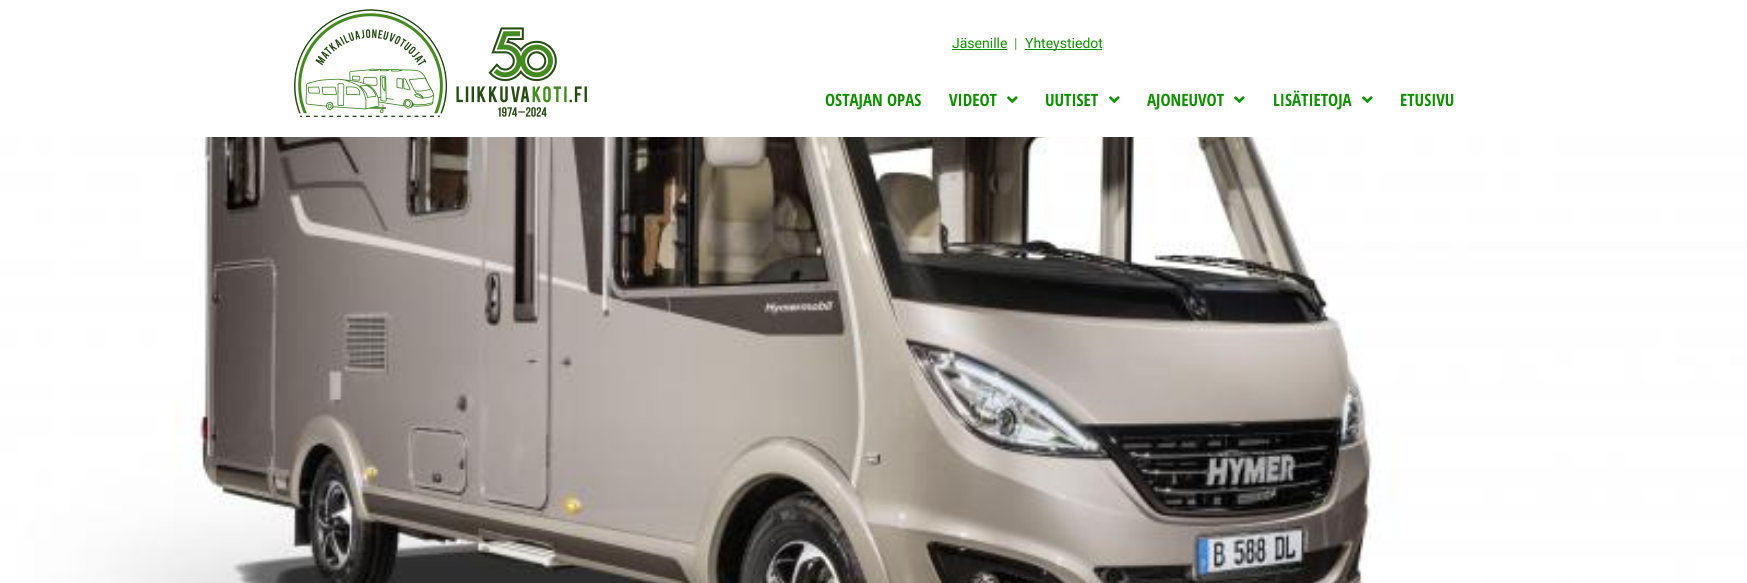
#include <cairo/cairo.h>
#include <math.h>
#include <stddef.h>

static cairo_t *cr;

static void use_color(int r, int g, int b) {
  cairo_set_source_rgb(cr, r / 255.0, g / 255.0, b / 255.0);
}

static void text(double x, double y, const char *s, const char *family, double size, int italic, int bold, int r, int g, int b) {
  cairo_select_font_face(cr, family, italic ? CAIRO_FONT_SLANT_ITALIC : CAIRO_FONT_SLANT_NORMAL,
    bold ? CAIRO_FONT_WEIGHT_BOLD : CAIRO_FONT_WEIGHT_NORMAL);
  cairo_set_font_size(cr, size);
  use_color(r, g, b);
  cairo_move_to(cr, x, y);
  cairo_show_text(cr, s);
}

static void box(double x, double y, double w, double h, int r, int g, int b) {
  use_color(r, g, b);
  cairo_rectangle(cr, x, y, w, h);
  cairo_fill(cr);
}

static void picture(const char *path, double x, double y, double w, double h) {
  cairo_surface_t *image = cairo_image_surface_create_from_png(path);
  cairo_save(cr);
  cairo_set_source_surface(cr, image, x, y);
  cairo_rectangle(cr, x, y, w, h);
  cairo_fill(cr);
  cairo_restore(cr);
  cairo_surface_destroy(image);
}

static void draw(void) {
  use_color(255, 255, 255);
  cairo_paint(cr);
  picture("img_01.png", 294, 9, 293, 108);
  box(952, 49, 55, 1, 18, 143, 0);
  box(1025, 49, 77, 1, 18, 143, 0);
  picture("img_02.png", 1007, 96, 11, 7);
  picture("img_02.png", 1109, 96, 11, 7);
  picture("img_02.png", 1234, 96, 11, 7);
  picture("img_02.png", 1362, 96, 11, 7);
  picture("img_03.png", 0, 137, 1747, 446);
  text(952, 48, "Jäsenille", "Roboto", 14, 0, 0, 18, 143, 0);
  text(1014, 48, "|", "Roboto", 14, 0, 0, 80, 158, 69);
  text(1025, 48, "Yhteystiedot", "Roboto", 14, 0, 0, 18, 143, 0);
  text(825, 106, "OSTAJAN OPAS", "Open Sans Condensed", 17, 0, 1, 18, 143, 0);
  text(949, 106, "VIDEOT", "Open Sans Condensed", 17, 0, 1, 18, 143, 0);
  text(1045, 106, "UUTISET", "Open Sans Condensed", 17, 0, 1, 18, 143, 0);
  text(1147, 106, "AJONEUVOT", "Open Sans Condensed", 17, 0, 1, 18, 143, 0);
  text(1273, 106, "LISÄTIETOJA", "Open Sans Condensed", 17, 0, 1, 18, 143, 0);
  text(1400, 106, "ETUSIVU", "Open Sans Condensed", 17, 0, 1, 18, 143, 0);
}

int main(void) {
  cairo_surface_t *surface = cairo_image_surface_create(CAIRO_FORMAT_RGB24, 1747, 583);
  cr = cairo_create(surface);
  cairo_font_options_t *options = cairo_font_options_create();
  cairo_font_options_set_hint_metrics(options, CAIRO_HINT_METRICS_OFF);
  cairo_font_options_set_hint_style(options, CAIRO_HINT_STYLE_NONE);
  cairo_set_font_options(cr, options);
  cairo_set_miter_limit(cr, 4);
  draw();
  cairo_surface_write_to_png(surface, "out.png");
  cairo_font_options_destroy(options);
  cairo_destroy(cr);
  cairo_surface_destroy(surface);
  return 0;
}
